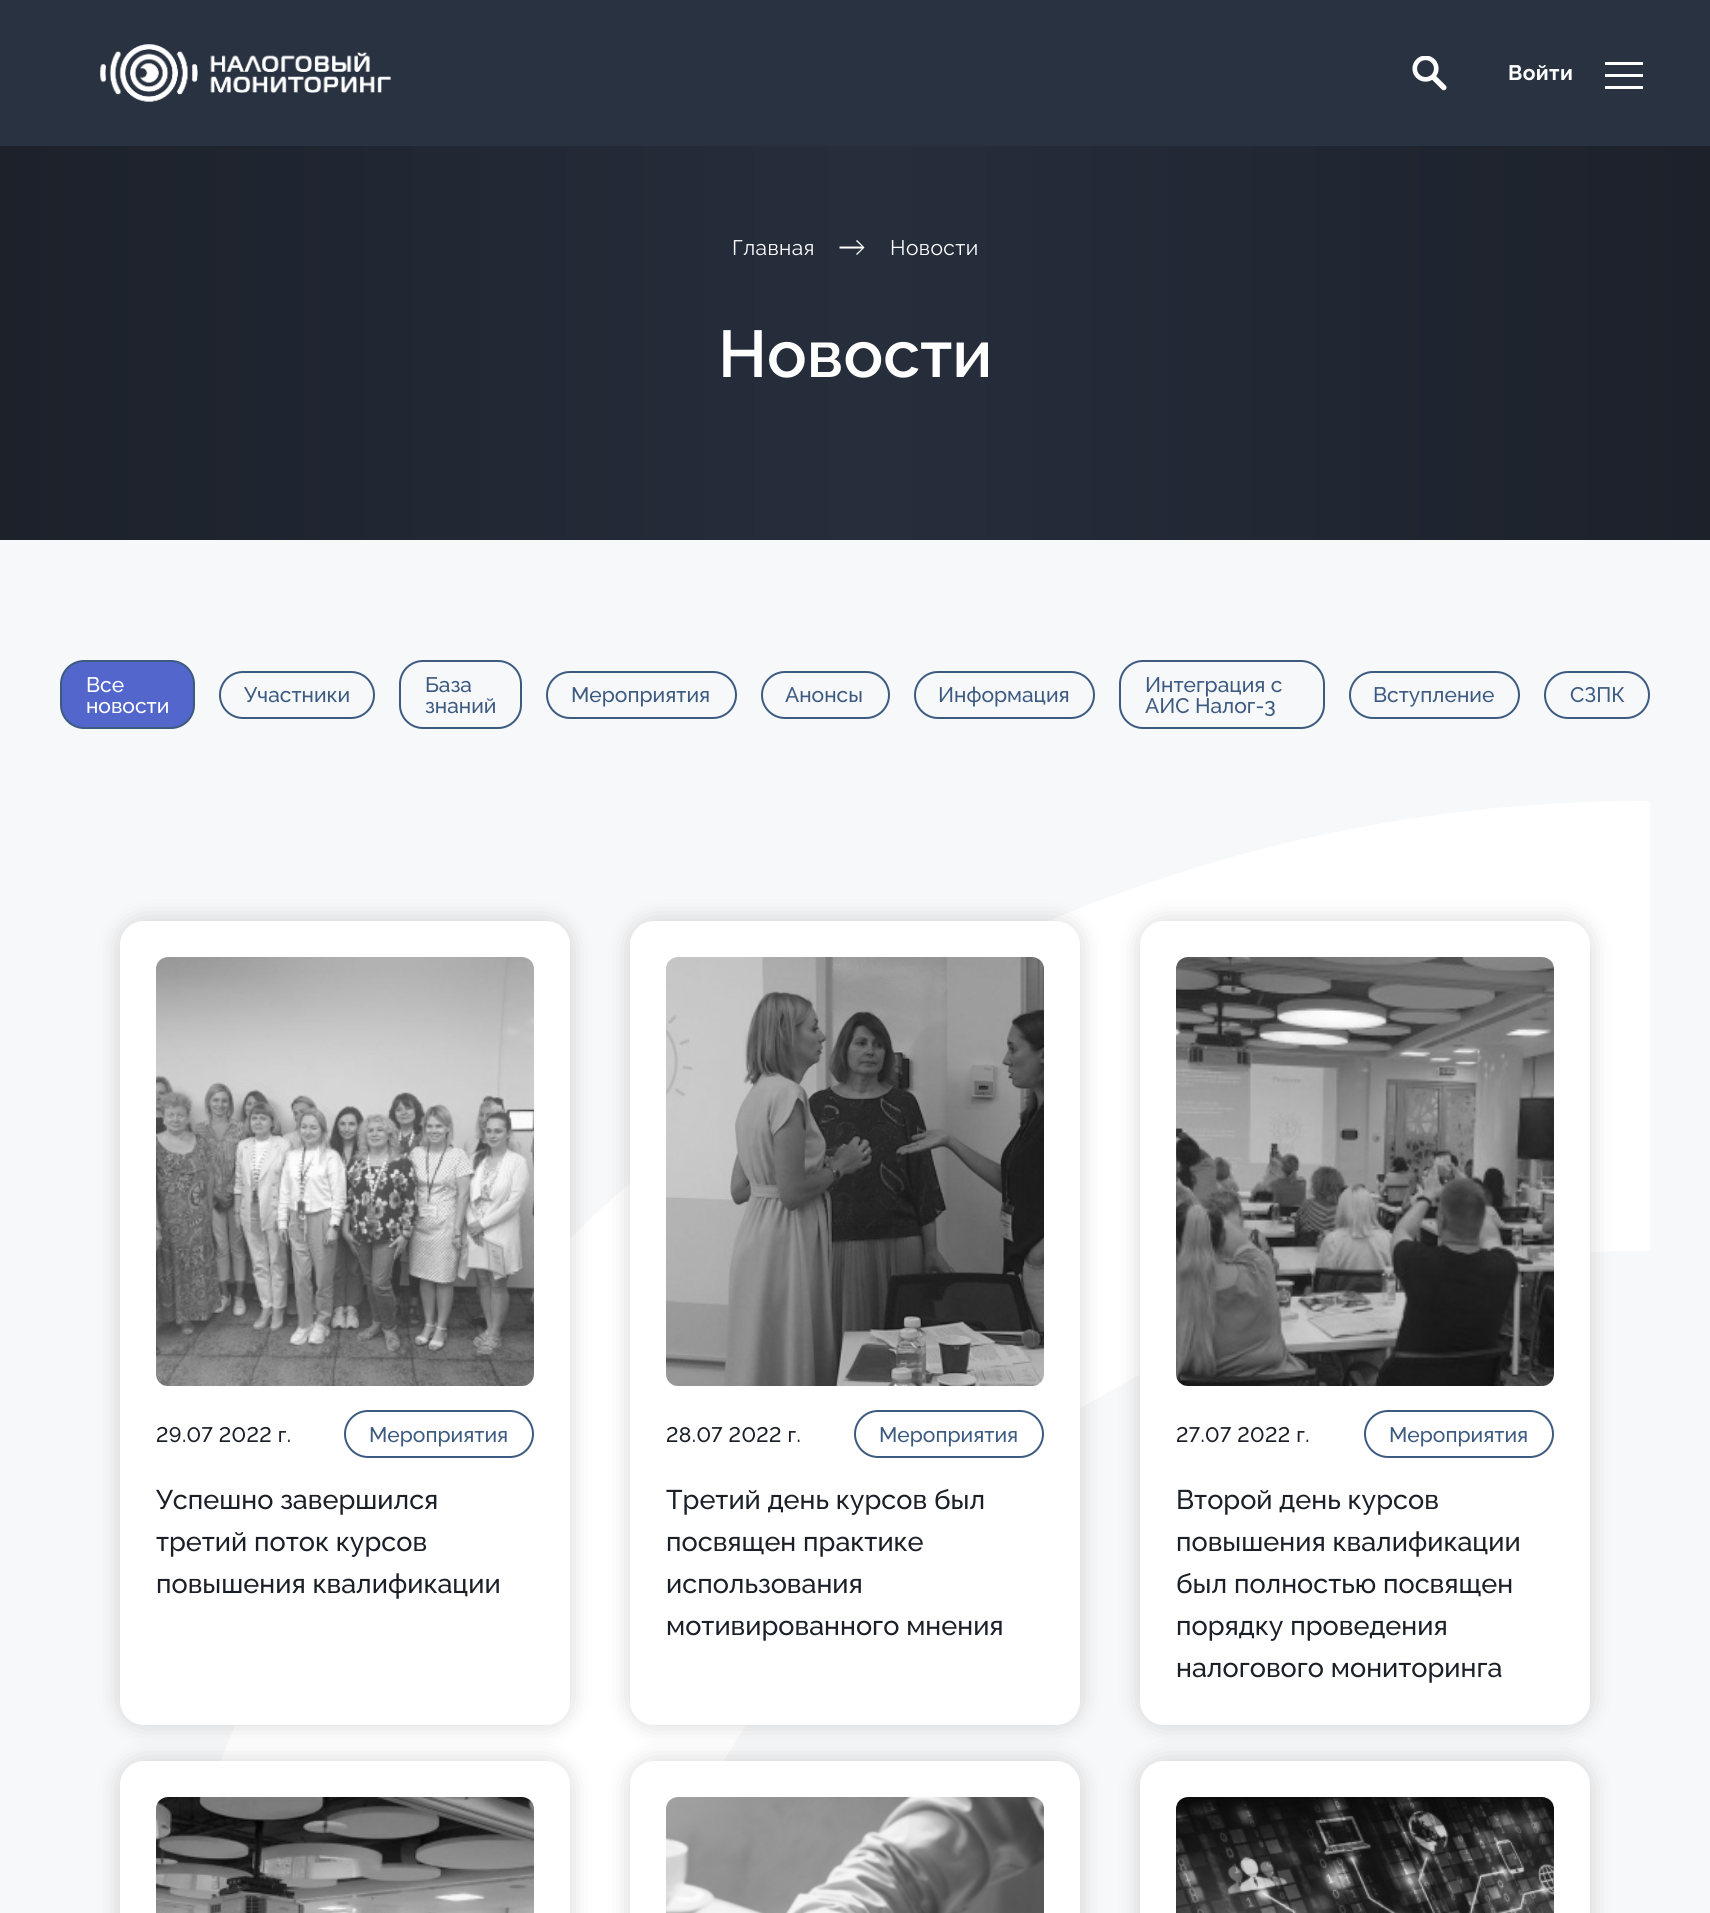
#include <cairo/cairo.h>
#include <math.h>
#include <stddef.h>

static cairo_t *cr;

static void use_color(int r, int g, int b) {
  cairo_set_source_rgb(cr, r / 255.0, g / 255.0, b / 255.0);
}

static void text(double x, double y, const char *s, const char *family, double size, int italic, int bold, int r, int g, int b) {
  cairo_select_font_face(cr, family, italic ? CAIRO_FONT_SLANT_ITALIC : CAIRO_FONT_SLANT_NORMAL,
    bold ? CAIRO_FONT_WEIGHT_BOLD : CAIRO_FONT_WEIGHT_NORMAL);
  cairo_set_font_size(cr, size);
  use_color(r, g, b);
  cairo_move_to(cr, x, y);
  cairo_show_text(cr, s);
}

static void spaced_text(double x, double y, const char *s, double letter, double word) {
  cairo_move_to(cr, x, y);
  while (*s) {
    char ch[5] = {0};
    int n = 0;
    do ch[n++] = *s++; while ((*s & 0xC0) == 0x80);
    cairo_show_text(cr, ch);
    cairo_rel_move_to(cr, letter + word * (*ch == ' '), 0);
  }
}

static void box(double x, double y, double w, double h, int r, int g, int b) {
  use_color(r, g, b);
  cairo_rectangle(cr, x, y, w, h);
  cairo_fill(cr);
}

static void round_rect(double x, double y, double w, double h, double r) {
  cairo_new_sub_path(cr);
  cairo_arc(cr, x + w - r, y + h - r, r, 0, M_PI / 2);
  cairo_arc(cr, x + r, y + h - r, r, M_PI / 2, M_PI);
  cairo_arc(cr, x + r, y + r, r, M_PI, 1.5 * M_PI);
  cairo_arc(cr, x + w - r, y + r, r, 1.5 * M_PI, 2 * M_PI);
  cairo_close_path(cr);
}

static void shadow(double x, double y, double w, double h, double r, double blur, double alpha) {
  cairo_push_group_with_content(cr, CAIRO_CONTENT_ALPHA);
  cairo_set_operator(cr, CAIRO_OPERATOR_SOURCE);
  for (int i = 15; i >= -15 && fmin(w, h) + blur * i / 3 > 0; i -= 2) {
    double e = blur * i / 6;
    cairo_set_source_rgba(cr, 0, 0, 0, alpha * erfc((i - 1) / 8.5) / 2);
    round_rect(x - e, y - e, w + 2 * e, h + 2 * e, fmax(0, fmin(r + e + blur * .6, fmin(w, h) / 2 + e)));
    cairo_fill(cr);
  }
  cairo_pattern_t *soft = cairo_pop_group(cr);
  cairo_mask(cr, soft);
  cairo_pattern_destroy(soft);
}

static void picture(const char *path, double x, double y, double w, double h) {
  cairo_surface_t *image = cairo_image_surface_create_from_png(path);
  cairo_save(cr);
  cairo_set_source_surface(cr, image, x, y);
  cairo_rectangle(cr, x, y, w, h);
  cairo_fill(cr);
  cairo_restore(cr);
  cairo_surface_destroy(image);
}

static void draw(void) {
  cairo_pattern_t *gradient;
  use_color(255, 255, 255);
  cairo_paint(cr);
  box(0, 0, 1710, 146, 41, 50, 65);
  picture("img_01.png", 100, 44, 291, 58);
  picture("img_02.png", 1412, 56, 35, 35);
  box(1605, 62, 38, 3, 255, 255, 255);
  box(1605, 74, 38, 3, 255, 255, 255);
  box(1605, 86, 38, 3, 255, 255, 255);
  gradient = cairo_pattern_create_linear(0, 315, 1710, 315);
  cairo_pattern_add_color_stop_rgba(gradient, 0, 0.11, 0.129, 0.165, 1);
  cairo_pattern_add_color_stop_rgba(gradient, 0.51, 0.149, 0.18, 0.235, 1);
  cairo_pattern_add_color_stop_rgba(gradient, 1, 0.11, 0.129, 0.165, 1);
  cairo_set_source(cr, gradient);
  cairo_pattern_destroy(gradient);
  cairo_rectangle(cr, 0, 146, 1710, 394);
  cairo_fill(cr);
  use_color(255, 255, 255);
  cairo_new_path(cr);
  cairo_move_to(cr, 857, 240);
  cairo_line_to(cr, 856, 241);
  cairo_line_to(cr, 862, 246.5);
  cairo_line_to(cr, 839.5, 246.5);
  cairo_line_to(cr, 839.5, 248.5);
  cairo_line_to(cr, 862, 248.5);
  cairo_line_to(cr, 856, 254);
  cairo_line_to(cr, 857, 255);
  cairo_line_to(cr, 864.5, 247.5);
  cairo_close_path(cr);
  cairo_fill(cr);
  box(0, 540, 1710, 1373, 246, 248, 250);
  use_color(82, 102, 204);
  round_rect(61, 661, 133, 67, 23);
  cairo_fill_preserve(cr);
  use_color(61, 90, 128);
  cairo_stroke(cr);
  round_rect(220, 672, 154, 46, 23);
  cairo_stroke(cr);
  round_rect(400, 661, 121, 67, 23);
  cairo_stroke(cr);
  round_rect(547, 672, 189, 46, 23);
  cairo_stroke(cr);
  round_rect(762, 672, 127, 46, 23);
  cairo_stroke(cr);
  round_rect(915, 672, 179, 46, 23);
  cairo_stroke(cr);
  round_rect(1120, 661, 204, 67, 23);
  cairo_stroke(cr);
  round_rect(1350, 672, 169, 46, 23);
  cairo_stroke(cr);
  round_rect(1545, 672, 104, 46, 23);
  cairo_stroke(cr);
  cairo_save(cr);
  cairo_rectangle(cr, 110, 801, 1540, 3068);
  cairo_clip(cr);
  cairo_arc(cr, 1643, 2335, 1309, 0, 2 * M_PI);
  use_color(255, 255, 255);
  cairo_set_line_width(cr, 450);
  cairo_stroke(cr);
  cairo_restore(cr);
  use_color(0, 0, 0);
  shadow(120, 921, 450, 804, 24, 12, 0.16);
  use_color(255, 255, 255);
  round_rect(120, 921, 450, 804, 24);
  cairo_fill(cr);
  picture("img_03.png", 156, 957, 378, 429);
  round_rect(345, 1411, 188, 46, 23);
  use_color(61, 90, 128);
  cairo_stroke(cr);
  use_color(0, 0, 0);
  shadow(630, 921, 450, 804, 24, 12, 0.16);
  use_color(255, 255, 255);
  round_rect(630, 921, 450, 804, 24);
  cairo_fill(cr);
  picture("img_04.png", 666, 957, 378, 429);
  round_rect(855, 1411, 188, 46, 23);
  use_color(61, 90, 128);
  cairo_stroke(cr);
  use_color(0, 0, 0);
  shadow(1140, 921, 450, 804, 24, 12, 0.16);
  use_color(255, 255, 255);
  round_rect(1140, 921, 450, 804, 24);
  cairo_fill(cr);
  picture("img_05.png", 1176, 957, 378, 429);
  round_rect(1365, 1411, 188, 46, 23);
  use_color(61, 90, 128);
  cairo_stroke(cr);
  use_color(0, 0, 0);
  shadow(120, 1761, 450, 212, 24, 12, 0.16);
  use_color(255, 255, 255);
  round_rect(120, 1761, 450, 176, 24);
  cairo_fill(cr);
  picture("img_06.png", 156, 1797, 378, 116);
  use_color(0, 0, 0);
  shadow(630, 1761, 450, 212, 24, 12, 0.16);
  use_color(255, 255, 255);
  round_rect(630, 1761, 450, 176, 24);
  cairo_fill(cr);
  picture("img_07.png", 666, 1797, 378, 116);
  use_color(0, 0, 0);
  shadow(1140, 1761, 450, 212, 24, 12, 0.16);
  use_color(255, 255, 255);
  round_rect(1140, 1761, 450, 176, 24);
  cairo_fill(cr);
  picture("img_08.png", 1176, 1797, 378, 116);
  cairo_select_font_face(cr, "Raleway", CAIRO_FONT_SLANT_NORMAL, CAIRO_FONT_WEIGHT_BOLD);
  cairo_set_font_size(cr, 21);
  spaced_text(1508, 80, "Войти", 0.4, 0);
  cairo_select_font_face(cr, "Raleway", CAIRO_FONT_SLANT_NORMAL, CAIRO_FONT_WEIGHT_NORMAL);
  spaced_text(732, 255, "Главная", 0.4, 0);
  spaced_text(890, 255, "Новости", 0.4, 0);
  text(718, 377, "Новости", "Raleway SemiBold", 66, 0, 0, 255, 255, 255);
  text(86, 692, "Все", "Raleway Medium", 21, 0, 0, 255, 255, 255);
  text(86, 713, "новости", "Raleway Medium", 21, 0, 0, 255, 255, 255);
  text(244, 702, "Участники", "Raleway Medium", 21, 0, 0, 61, 90, 128);
  text(425, 692, "База", "Raleway Medium", 21, 0, 0, 61, 90, 128);
  text(425, 713, "знаний", "Raleway Medium", 21, 0, 0, 61, 90, 128);
  text(571, 702, "Мероприятия", "Raleway Medium", 21, 0, 0, 61, 90, 128);
  text(785, 702, "Анонсы", "Raleway Medium", 21, 0, 0, 61, 90, 128);
  text(938, 702, "Информация", "Raleway Medium", 21, 0, 0, 61, 90, 128);
  text(1145, 692, "Интеграция с", "Raleway Medium", 21, 0, 0, 61, 90, 128);
  text(1145, 713, "АИС Налог-3", "Raleway Medium", 21, 0, 0, 61, 90, 128);
  text(1373, 702, "Вступление", "Raleway Medium", 21, 0, 0, 61, 90, 128);
  text(1570, 702, "СЗПК", "Raleway Medium", 21, 0, 0, 61, 90, 128);
  cairo_select_font_face(cr, "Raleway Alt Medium", CAIRO_FONT_SLANT_NORMAL, CAIRO_FONT_WEIGHT_NORMAL);
  use_color(27, 32, 40);
  spaced_text(156, 1442, "29.07 2022 г.", 0.4, 0);
  text(369, 1442, "Мероприятия", "Raleway Medium", 21, 0, 0, 61, 90, 128);
  text(156, 1509, "Успешно завершился", "Raleway Medium", 27, 0, 0, 27, 32, 40);
  text(156, 1551, "третий поток курсов", "Raleway Medium", 27, 0, 0, 27, 32, 40);
  text(156, 1593, "повышения квалификации", "Raleway Medium", 27, 0, 0, 27, 32, 40);
  cairo_select_font_face(cr, "Raleway Alt Medium", CAIRO_FONT_SLANT_NORMAL, CAIRO_FONT_WEIGHT_NORMAL);
  cairo_set_font_size(cr, 21);
  spaced_text(666, 1442, "28.07 2022 г.", 0.4, 0);
  text(879, 1442, "Мероприятия", "Raleway Medium", 21, 0, 0, 61, 90, 128);
  text(666, 1509, "Третий день курсов был", "Raleway Medium", 27, 0, 0, 27, 32, 40);
  text(666, 1551, "посвящен практике", "Raleway Medium", 27, 0, 0, 27, 32, 40);
  text(666, 1593, "использования", "Raleway Medium", 27, 0, 0, 27, 32, 40);
  text(666, 1635, "мотивированного мнения", "Raleway Medium", 27, 0, 0, 27, 32, 40);
  cairo_select_font_face(cr, "Raleway Alt Medium", CAIRO_FONT_SLANT_NORMAL, CAIRO_FONT_WEIGHT_NORMAL);
  cairo_set_font_size(cr, 21);
  spaced_text(1176, 1442, "27.07 2022 г.", 0.4, 0);
  text(1389, 1442, "Мероприятия", "Raleway Medium", 21, 0, 0, 61, 90, 128);
  text(1176, 1509, "Второй день курсов", "Raleway Medium", 27, 0, 0, 27, 32, 40);
  text(1176, 1551, "повышения квалификации", "Raleway Medium", 27, 0, 0, 27, 32, 40);
  text(1176, 1593, "был полностью посвящен", "Raleway Medium", 27, 0, 0, 27, 32, 40);
  text(1176, 1635, "порядку проведения", "Raleway Medium", 27, 0, 0, 27, 32, 40);
  text(1176, 1677, "налогового мониторинга", "Raleway Medium", 27, 0, 0, 27, 32, 40);
}

int main(void) {
  cairo_surface_t *surface = cairo_image_surface_create(CAIRO_FORMAT_RGB24, 1710, 1913);
  cr = cairo_create(surface);
  cairo_font_options_t *options = cairo_font_options_create();
  cairo_font_options_set_hint_metrics(options, CAIRO_HINT_METRICS_OFF);
  cairo_font_options_set_hint_style(options, CAIRO_HINT_STYLE_NONE);
  cairo_set_font_options(cr, options);
  cairo_set_miter_limit(cr, 4);
  draw();
  cairo_surface_write_to_png(surface, "out.png");
  cairo_font_options_destroy(options);
  cairo_destroy(cr);
  cairo_surface_destroy(surface);
  return 0;
}
